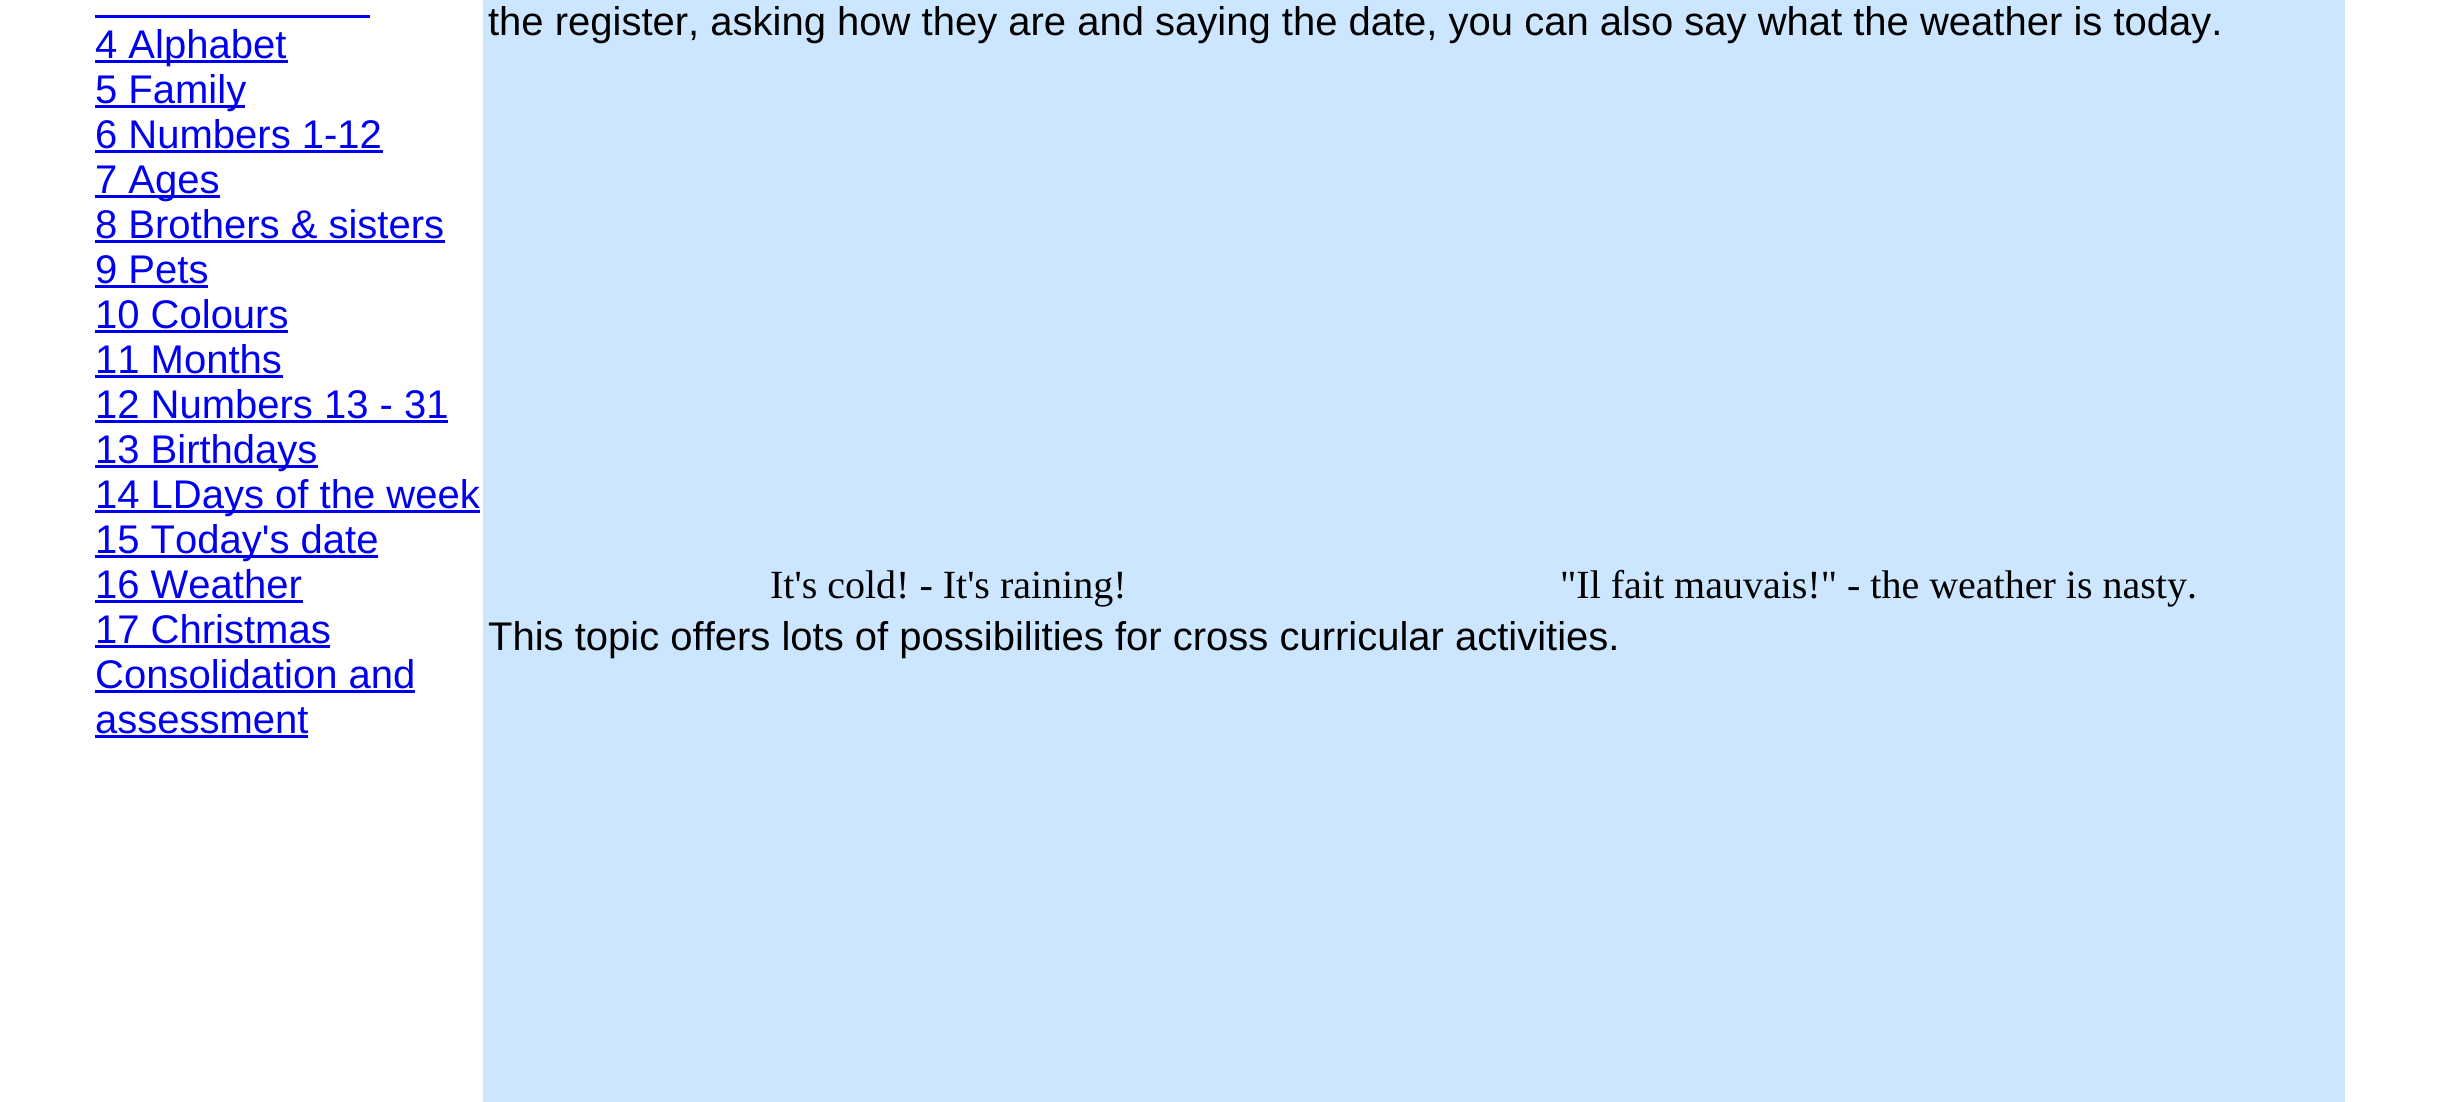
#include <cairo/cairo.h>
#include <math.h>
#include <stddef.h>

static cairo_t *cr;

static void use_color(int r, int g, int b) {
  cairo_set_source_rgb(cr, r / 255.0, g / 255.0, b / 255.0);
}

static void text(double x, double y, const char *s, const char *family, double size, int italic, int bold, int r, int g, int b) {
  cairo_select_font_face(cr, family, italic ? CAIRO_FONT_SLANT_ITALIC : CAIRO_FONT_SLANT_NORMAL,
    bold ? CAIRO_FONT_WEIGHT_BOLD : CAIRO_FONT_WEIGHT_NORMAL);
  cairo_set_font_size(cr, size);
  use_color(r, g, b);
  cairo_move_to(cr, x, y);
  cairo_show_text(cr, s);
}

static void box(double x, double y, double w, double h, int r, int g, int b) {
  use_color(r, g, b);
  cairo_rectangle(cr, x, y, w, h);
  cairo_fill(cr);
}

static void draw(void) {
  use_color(255, 255, 255);
  cairo_paint(cr);
  box(95, 15, 275, 3, 0, 0, 238);
  box(95, 60, 193, 3, 0, 0, 238);
  box(95, 105, 150, 3, 0, 0, 238);
  box(95, 150, 288, 3, 0, 0, 238);
  box(95, 195, 125, 3, 0, 0, 238);
  box(95, 240, 350, 3, 0, 0, 238);
  box(95, 285, 113, 3, 0, 0, 238);
  box(95, 330, 193, 3, 0, 0, 238);
  box(95, 375, 188, 3, 0, 0, 238);
  box(95, 420, 353, 3, 0, 0, 238);
  box(95, 465, 223, 3, 0, 0, 238);
  box(95, 510, 385, 3, 0, 0, 238);
  box(95, 555, 283, 3, 0, 0, 238);
  box(95, 600, 208, 3, 0, 0, 238);
  box(95, 645, 235, 3, 0, 0, 238);
  box(95, 690, 320, 3, 0, 0, 238);
  box(95, 735, 213, 3, 0, 0, 238);
  box(483, 0, 1862, 1102, 204, 230, 255);
  text(95, 58, "4 Alphabet", "Liberation Sans", 40, 0, 0, 0, 0, 238);
  text(95, 103, "5 Family", "Liberation Sans", 40, 0, 0, 0, 0, 238);
  text(95, 148, "6 Numbers 1-12", "Liberation Sans", 40, 0, 0, 0, 0, 238);
  text(95, 193, "7 Ages", "Liberation Sans", 40, 0, 0, 0, 0, 238);
  text(95, 238, "8 Brothers & sisters", "Liberation Sans", 40, 0, 0, 0, 0, 238);
  text(95, 283, "9 Pets", "Liberation Sans", 40, 0, 0, 0, 0, 238);
  text(95, 328, "10 Colours", "Liberation Sans", 40, 0, 0, 0, 0, 238);
  text(95, 373, "11 Months", "Liberation Sans", 40, 0, 0, 0, 0, 238);
  text(95, 418, "12 Numbers 13 - 31", "Liberation Sans", 40, 0, 0, 0, 0, 238);
  text(95, 463, "13 Birthdays", "Liberation Sans", 40, 0, 0, 0, 0, 238);
  text(95, 508, "14 LDays of the week", "Liberation Sans", 40, 0, 0, 0, 0, 238);
  text(95, 553, "15 Today's date", "Liberation Sans", 40, 0, 0, 0, 0, 238);
  text(95, 598, "16 Weather", "Liberation Sans", 40, 0, 0, 0, 0, 238);
  text(95, 643, "17 Christmas", "Liberation Sans", 40, 0, 0, 0, 0, 238);
  text(95, 688, "Consolidation and", "Liberation Sans", 40, 0, 0, 0, 0, 238);
  text(95, 733, "assessment", "Liberation Sans", 40, 0, 0, 0, 0, 238);
  text(488, 35, "the register, asking how they are and saying the date, you can also say what the weather is today.", "Liberation Sans", 40, 0, 0, 0, 0, 0);
  text(770, 598, "It's cold! - It's raining!", "Liberation Serif", 40, 0, 0, 0, 0, 0);
  text(1560, 598, "\"Il fait mauvais!\" - the weather is nasty.", "Liberation Serif", 40, 0, 0, 0, 0, 0);
  text(488, 650, "This topic offers lots of possibilities for cross curricular activities.", "Liberation Sans", 40, 0, 0, 0, 0, 0);
}

int main(void) {
  cairo_surface_t *surface = cairo_image_surface_create(CAIRO_FORMAT_RGB24, 2440, 1102);
  cr = cairo_create(surface);
  cairo_font_options_t *options = cairo_font_options_create();
  cairo_font_options_set_hint_metrics(options, CAIRO_HINT_METRICS_OFF);
  cairo_font_options_set_hint_style(options, CAIRO_HINT_STYLE_NONE);
  cairo_set_font_options(cr, options);
  cairo_set_miter_limit(cr, 4);
  draw();
  cairo_surface_write_to_png(surface, "out.png");
  cairo_font_options_destroy(options);
  cairo_destroy(cr);
  cairo_surface_destroy(surface);
  return 0;
}
